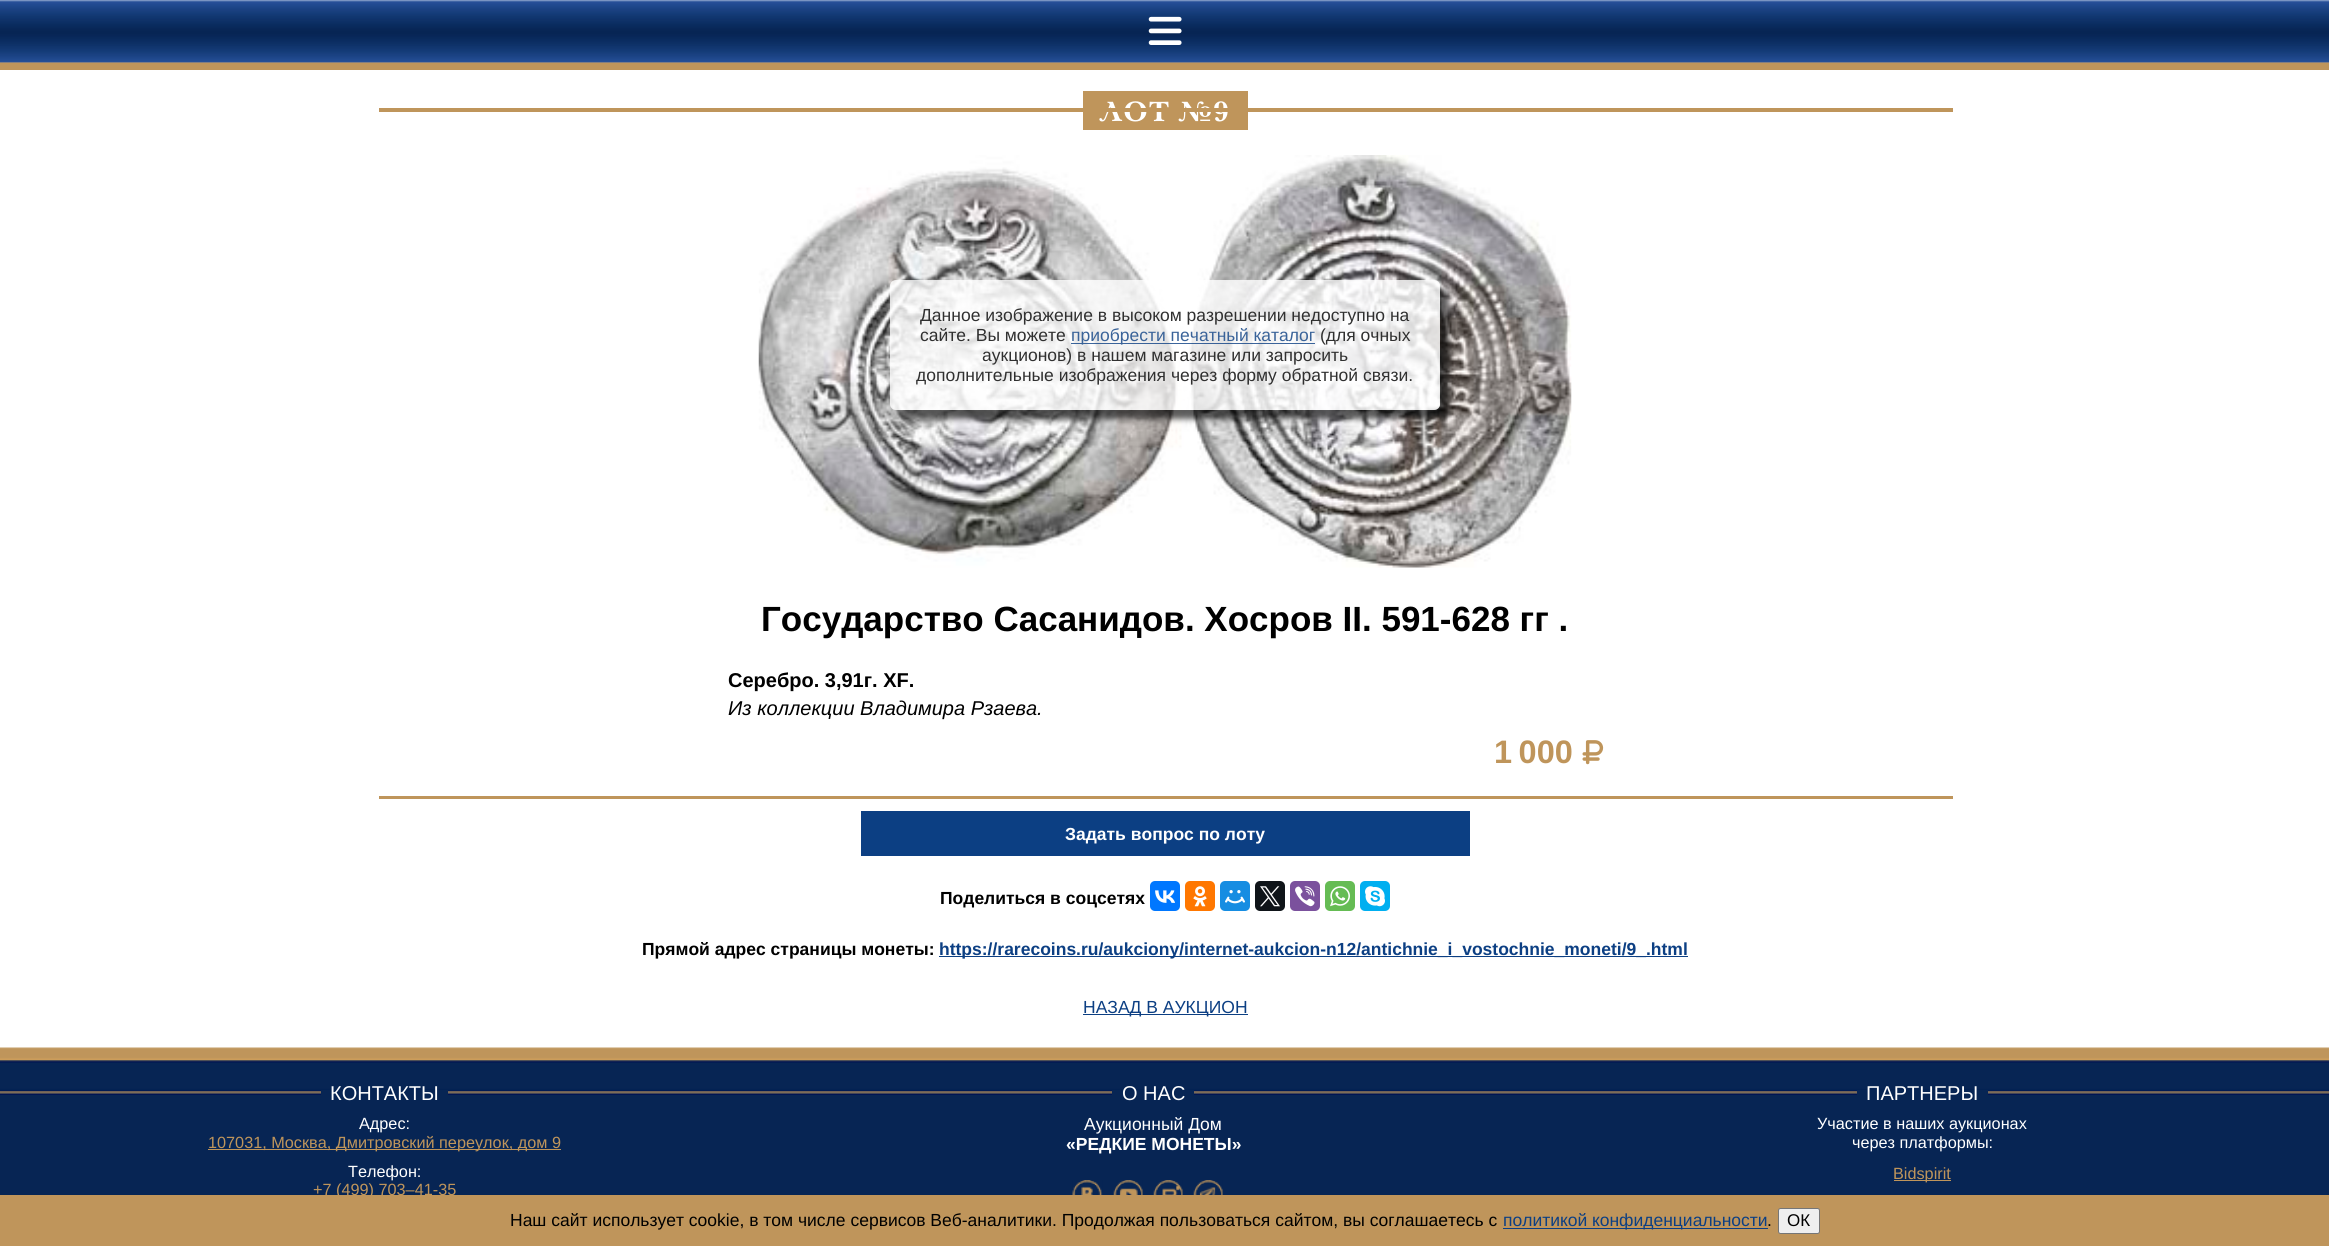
#include <cairo/cairo.h>
#include <math.h>
#include <stddef.h>

static cairo_t *cr;

static void use_color(int r, int g, int b) {
  cairo_set_source_rgb(cr, r / 255.0, g / 255.0, b / 255.0);
}

static void text(double x, double y, const char *s, const char *family, double size, int italic, int bold, int r, int g, int b) {
  cairo_select_font_face(cr, family, italic ? CAIRO_FONT_SLANT_ITALIC : CAIRO_FONT_SLANT_NORMAL,
    bold ? CAIRO_FONT_WEIGHT_BOLD : CAIRO_FONT_WEIGHT_NORMAL);
  cairo_set_font_size(cr, size);
  use_color(r, g, b);
  cairo_move_to(cr, x, y);
  cairo_show_text(cr, s);
}

static void spaced_text(double x, double y, const char *s, double letter, double word) {
  cairo_move_to(cr, x, y);
  while (*s) {
    char ch[5] = {0};
    int n = 0;
    do ch[n++] = *s++; while ((*s & 0xC0) == 0x80);
    cairo_show_text(cr, ch);
    cairo_rel_move_to(cr, letter + word * (*ch == ' '), 0);
  }
}

static void box(double x, double y, double w, double h, int r, int g, int b) {
  use_color(r, g, b);
  cairo_rectangle(cr, x, y, w, h);
  cairo_fill(cr);
}

static void round_rect(double x, double y, double w, double h, double r) {
  cairo_new_sub_path(cr);
  cairo_arc(cr, x + w - r, y + h - r, r, 0, M_PI / 2);
  cairo_arc(cr, x + r, y + h - r, r, M_PI / 2, M_PI);
  cairo_arc(cr, x + r, y + r, r, M_PI, 1.5 * M_PI);
  cairo_arc(cr, x + w - r, y + r, r, 1.5 * M_PI, 2 * M_PI);
  cairo_close_path(cr);
}

static void shadow(double x, double y, double w, double h, double r, double blur, double alpha) {
  cairo_push_group_with_content(cr, CAIRO_CONTENT_ALPHA);
  cairo_set_operator(cr, CAIRO_OPERATOR_SOURCE);
  for (int i = 15; i >= -15 && fmin(w, h) + blur * i / 3 > 0; i -= 2) {
    double e = blur * i / 6;
    cairo_set_source_rgba(cr, 0, 0, 0, alpha * erfc((i - 1) / 8.5) / 2);
    round_rect(x - e, y - e, w + 2 * e, h + 2 * e, fmax(0, fmin(r + e + blur * .6, fmin(w, h) / 2 + e)));
    cairo_fill(cr);
  }
  cairo_pattern_t *soft = cairo_pop_group(cr);
  cairo_mask(cr, soft);
  cairo_pattern_destroy(soft);
}

static void picture(const char *path, double x, double y, double w, double h) {
  cairo_surface_t *image = cairo_image_surface_create_from_png(path);
  cairo_save(cr);
  cairo_set_source_surface(cr, image, x, y);
  cairo_rectangle(cr, x, y, w, h);
  cairo_fill(cr);
  cairo_restore(cr);
  cairo_surface_destroy(image);
}

static void draw(void) {
  use_color(255, 255, 255);
  cairo_paint(cr);
  box(0, 62, 2329, 8, 191, 149, 91);
  picture("img_01.png", 0, 0, 2329, 63);
  picture("img_02.png", 1148, 16, 34, 29);
  box(1083, 91, 165, 39, 191, 149, 91);
  picture("img_03.png", 758, 155, 814, 413);
  cairo_save(cr);
  cairo_set_fill_rule(cr, CAIRO_FILL_RULE_EVEN_ODD);
  cairo_new_path(cr);
  cairo_move_to(cr, 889, 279);
  cairo_line_to(cr, 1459, 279);
  cairo_line_to(cr, 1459, 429);
  cairo_line_to(cr, 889, 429);
  cairo_close_path(cr);
  cairo_move_to(cr, 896, 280);
  cairo_line_to(cr, 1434, 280);
  cairo_curve_to(cr, 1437.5, 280, 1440, 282.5, 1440, 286);
  cairo_line_to(cr, 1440, 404);
  cairo_curve_to(cr, 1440, 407.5, 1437.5, 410, 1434, 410);
  cairo_line_to(cr, 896, 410);
  cairo_curve_to(cr, 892.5, 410, 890, 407.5, 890, 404);
  cairo_line_to(cr, 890, 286);
  cairo_curve_to(cr, 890, 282.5, 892.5, 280, 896, 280);
  cairo_close_path(cr);
  cairo_clip(cr);
  use_color(0, 0, 0);
  shadow(899, 289, 550, 130, 6, 3, 0.64);
  cairo_restore(cr);
  cairo_set_source_rgba(cr, 1, 1, 1, 0.8);
  round_rect(890, 280, 550, 130, 6);
  cairo_fill(cr);
  cairo_set_source_rgba(cr, 0.047, 0.247, 0.514, 0.8);
  cairo_rectangle(cr, 1071, 343, 244, 1);
  cairo_fill(cr);
  picture("img_04.png", 1582, 740, 22, 25);
  box(379, 796, 1574, 3, 191, 149, 91);
  box(861, 811, 609, 45, 12, 63, 131);
  use_color(0, 119, 255);
  round_rect(1150, 881, 30, 30, 5);
  cairo_fill(cr);
  picture("img_05.png", 1155, 890, 20, 13);
  use_color(255, 119, 0);
  round_rect(1185, 881, 30, 30, 5);
  cairo_fill(cr);
  picture("img_06.png", 1193, 886, 14, 21);
  use_color(22, 141, 226);
  round_rect(1220, 881, 30, 30, 5);
  cairo_fill(cr);
  picture("img_07.png", 1225, 890, 20, 14);
  use_color(15, 20, 25);
  round_rect(1255, 881, 30, 30, 5);
  cairo_fill(cr);
  picture("img_08.png", 1260, 886, 20, 21);
  use_color(123, 81, 157);
  round_rect(1290, 881, 30, 30, 5);
  cairo_fill(cr);
  picture("img_09.png", 1295, 886, 20, 21);
  use_color(101, 188, 84);
  round_rect(1325, 881, 30, 30, 5);
  cairo_fill(cr);
  picture("img_10.png", 1330, 886, 20, 21);
  use_color(0, 175, 240);
  round_rect(1360, 881, 30, 30, 5);
  cairo_fill(cr);
  picture("img_11.png", 1365, 886, 20, 21);
  box(939, 956, 749, 1, 12, 63, 131);
  box(1083, 1014, 165, 1, 12, 63, 131);
  box(0, 1095, 2329, 100, 7, 37, 84);
  picture("img_12.png", 0, 1047, 2329, 48);
  box(321, 1090, 127, 5, 7, 37, 84);
  box(208, 1149, 353, 1, 191, 149, 91);
  box(1112, 1090, 82, 5, 7, 37, 84);
  picture("img_13.png", 1072, 1180, 31, 15);
  picture("img_14.png", 1113, 1180, 30, 15);
  picture("img_15.png", 1153, 1180, 30, 15);
  picture("img_16.png", 1193, 1180, 30, 15);
  box(1857, 1090, 131, 5, 7, 37, 84);
  box(1894, 1180, 57, 1, 191, 149, 91);
  box(0, 1195, 2329, 51, 191, 149, 91);
  box(1503, 1228, 265, 1, 12, 63, 131);
  use_color(239, 239, 239);
  round_rect(1778.5, 1208.5, 41, 25, 2);
  cairo_fill_preserve(cr);
  use_color(118, 118, 118);
  cairo_set_line_width(cr, 1);
  cairo_stroke(cr);
  cairo_select_font_face(cr, "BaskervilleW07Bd", CAIRO_FONT_SLANT_NORMAL, CAIRO_FONT_WEIGHT_BOLD);
  cairo_set_font_size(cr, 28.75);
  use_color(255, 255, 255);
  spaced_text(1100, 121, "ЛОТ №9", 1.25, 0);
  box(379, 108, 1574, 4, 191, 149, 91);
  text(920, 321, "Данное изображение в высоком разрешении недоступно на", "Liberation Sans", 17.5, 0, 0, 48, 48, 48);
  text(920, 341, "сайте. Вы можете", "Liberation Sans", 17.5, 0, 0, 48, 48, 48);
  text(1071, 341, "приобрести печатный каталог", "Liberation Sans", 17.5, 0, 0, 58, 99, 153);
  text(1320, 341, "(для очных", "Liberation Sans", 17.5, 0, 0, 48, 48, 48);
  text(982, 361, "аукционов) в нашем магазине или запросить", "Liberation Sans", 17.5, 0, 0, 48, 48, 48);
  text(916, 381, "дополнительные изображения через форму обратной связи.", "Liberation Sans", 17.5, 0, 0, 48, 48, 48);
  text(761, 631, "Государство Сасанидов. Хосров II. 591-628 гг .", "Liberation Sans", 35, 0, 1, 0, 0, 0);
  text(728, 687, "Серебро. 3,91г. XF.", "Liberation Sans", 20, 0, 1, 0, 0, 0);
  text(728, 715, "Из коллекции Владимира Рзаева.", "Liberation Sans", 20, 1, 0, 0, 0, 0);
  text(1494, 763, "1 000", "Liberation Sans", 32.5, 0, 1, 191, 149, 91);
  text(1065, 840, "Задать вопрос по лоту", "Liberation Sans", 17.5, 0, 1, 255, 255, 255);
  text(940, 904, "Поделиться в соцсетях", "Liberation Sans", 17.5, 0, 1, 0, 0, 0);
  text(642, 955, "Прямой адрес страницы монеты:", "Liberation Sans", 17.5, 0, 1, 0, 0, 0);
  text(939, 955, "https://rarecoins.ru/aukciony/internet-aukcion-n12/antichnie_i_vostochnie_moneti/9_.html", "Liberation Sans", 17.5, 0, 1, 12, 63, 131);
  text(1083, 1013, "НАЗАД В АУКЦИОН", "Liberation Sans", 17.5, 0, 0, 12, 63, 131);
  text(330, 1100, "КОНТАКТЫ", "Liberation Sans", 20, 0, 0, 255, 255, 255);
  text(359, 1129, "Адрес:", "Liberation Sans", 16.25, 0, 0, 255, 255, 255);
  text(208, 1148, "107031, Москва, Дмитровский переулок, дом 9", "Liberation Sans", 16.25, 0, 0, 191, 149, 91);
  text(348, 1177, "Телефон:", "Liberation Sans", 16.25, 0, 0, 255, 255, 255);
  text(313, 1195, "+7 (499) 703–41-35", "Liberation Sans", 16.25, 0, 0, 191, 149, 91);
  text(1122, 1100, "О НАС", "Liberation Sans", 20, 0, 0, 255, 255, 255);
  text(1084, 1130, "Аукционный Дом", "Liberation Sans", 17.5, 0, 0, 255, 255, 255);
  text(1066, 1150, "«РЕДКИЕ МОНЕТЫ»", "Liberation Sans", 17.5, 0, 1, 255, 255, 255);
  text(1866, 1100, "ПАРТНЕРЫ", "Liberation Sans", 20, 0, 0, 255, 255, 255);
  text(1817, 1129, "Участие в наших аукционах", "Liberation Sans", 16.25, 0, 0, 255, 255, 255);
  text(1852, 1148, "через платформы:", "Liberation Sans", 16.25, 0, 0, 255, 255, 255);
  text(1893, 1179, "Bidspirit", "Liberation Sans", 16.25, 0, 0, 191, 149, 91);
  text(510, 1226, "Наш сайт использует сооkiе, в том числе сервисов Веб-аналитики. Продолжая пользоваться сайтом, вы соглашаетесь с", "Liberation Sans", 17.5, 0, 0, 0, 0, 0);
  text(1503, 1226, "политикой конфиденциальности", "Liberation Sans", 17.5, 0, 0, 12, 63, 131);
  text(1767, 1226, ".", "Liberation Sans", 17.5, 0, 0, 0, 0, 0);
  text(1787, 1226, "ОК", "Liberation Sans", 17, 0, 0, 0, 0, 0);
}

int main(void) {
  cairo_surface_t *surface = cairo_image_surface_create(CAIRO_FORMAT_RGB24, 2329, 1246);
  cr = cairo_create(surface);
  cairo_font_options_t *options = cairo_font_options_create();
  cairo_font_options_set_hint_metrics(options, CAIRO_HINT_METRICS_OFF);
  cairo_font_options_set_hint_style(options, CAIRO_HINT_STYLE_NONE);
  cairo_set_font_options(cr, options);
  cairo_set_miter_limit(cr, 4);
  draw();
  cairo_surface_write_to_png(surface, "out.png");
  cairo_font_options_destroy(options);
  cairo_destroy(cr);
  cairo_surface_destroy(surface);
  return 0;
}
